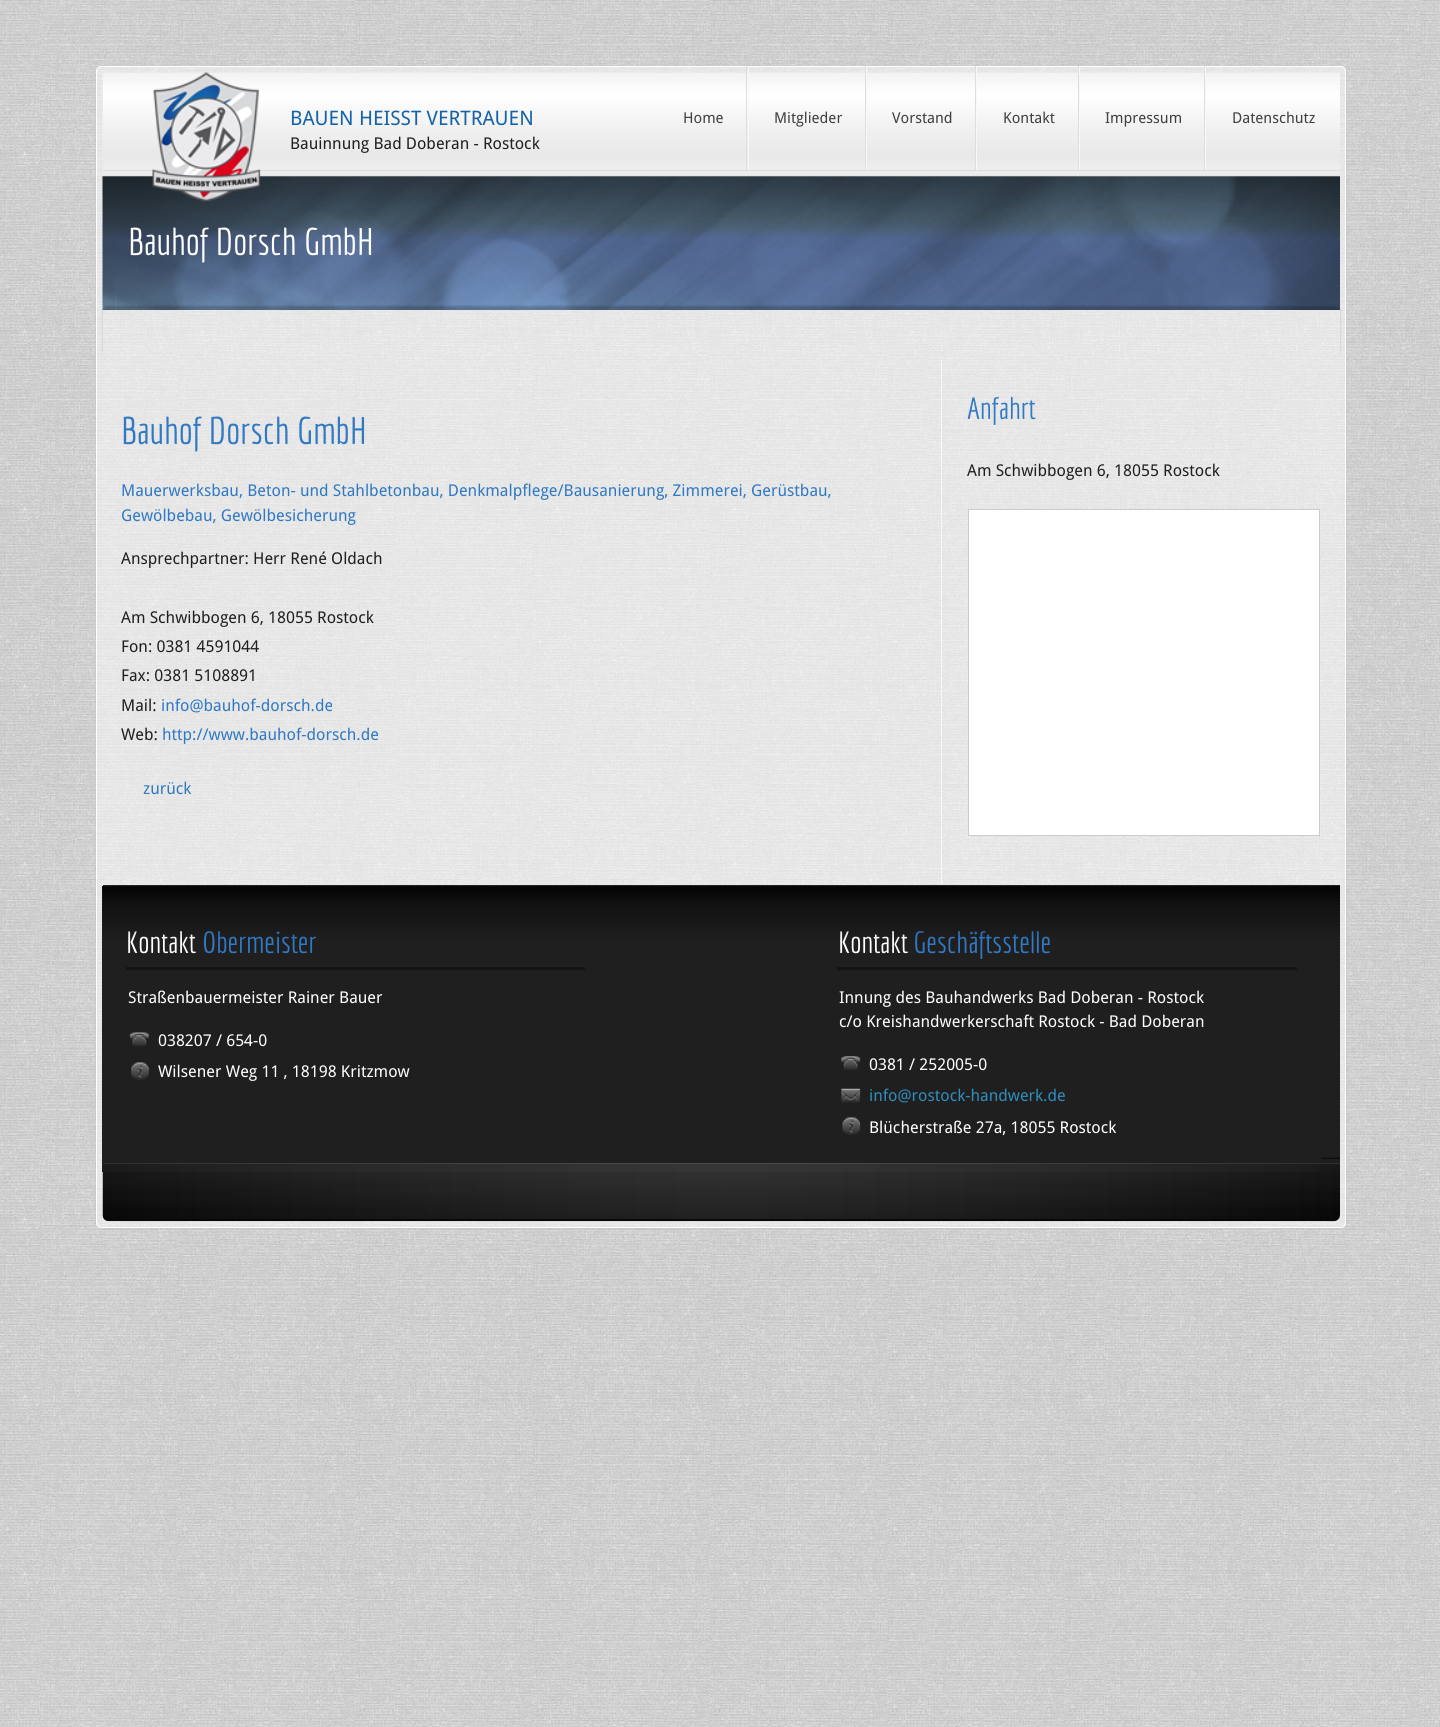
#include <cairo/cairo.h>
#include <math.h>
#include <stddef.h>

static cairo_t *cr;

static void use_color(int r, int g, int b) {
  cairo_set_source_rgb(cr, r / 255.0, g / 255.0, b / 255.0);
}

static void text(double x, double y, const char *s, const char *family, double size, int italic, int bold, int r, int g, int b) {
  cairo_select_font_face(cr, family, italic ? CAIRO_FONT_SLANT_ITALIC : CAIRO_FONT_SLANT_NORMAL,
    bold ? CAIRO_FONT_WEIGHT_BOLD : CAIRO_FONT_WEIGHT_NORMAL);
  cairo_set_font_size(cr, size);
  use_color(r, g, b);
  cairo_move_to(cr, x, y);
  cairo_show_text(cr, s);
}

static void box(double x, double y, double w, double h, int r, int g, int b) {
  use_color(r, g, b);
  cairo_rectangle(cr, x, y, w, h);
  cairo_fill(cr);
}

static void round_rect(double x, double y, double w, double h, double r) {
  cairo_new_sub_path(cr);
  cairo_arc(cr, x + w - r, y + h - r, r, 0, M_PI / 2);
  cairo_arc(cr, x + r, y + h - r, r, M_PI / 2, M_PI);
  cairo_arc(cr, x + r, y + r, r, M_PI, 1.5 * M_PI);
  cairo_arc(cr, x + w - r, y + r, r, 1.5 * M_PI, 2 * M_PI);
  cairo_close_path(cr);
}

static void shadow(double x, double y, double w, double h, double r, double blur, double alpha) {
  cairo_push_group_with_content(cr, CAIRO_CONTENT_ALPHA);
  cairo_set_operator(cr, CAIRO_OPERATOR_SOURCE);
  for (int i = 15; i >= -15 && fmin(w, h) + blur * i / 3 > 0; i -= 2) {
    double e = blur * i / 6;
    cairo_set_source_rgba(cr, 0, 0, 0, alpha * erfc((i - 1) / 8.5) / 2);
    round_rect(x - e, y - e, w + 2 * e, h + 2 * e, fmax(0, fmin(r + e + blur * .6, fmin(w, h) / 2 + e)));
    cairo_fill(cr);
  }
  cairo_pattern_t *soft = cairo_pop_group(cr);
  cairo_mask(cr, soft);
  cairo_pattern_destroy(soft);
}

static void picture(const char *path, double x, double y, double w, double h) {
  cairo_surface_t *image = cairo_image_surface_create_from_png(path);
  cairo_save(cr);
  cairo_set_source_surface(cr, image, x, y);
  cairo_rectangle(cr, x, y, w, h);
  cairo_fill(cr);
  cairo_restore(cr);
  cairo_surface_destroy(image);
}

static void draw(void) {
  cairo_pattern_t *gradient;
  use_color(255, 255, 255);
  cairo_paint(cr);
  picture("img_01.png", 0, 0, 1440, 1727);
  cairo_save(cr);
  cairo_set_fill_rule(cr, CAIRO_FILL_RULE_EVEN_ODD);
  cairo_new_path(cr);
  cairo_move_to(cr, 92, 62);
  cairo_line_to(cr, 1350, 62);
  cairo_line_to(cr, 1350, 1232);
  cairo_line_to(cr, 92, 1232);
  cairo_close_path(cr);
  cairo_move_to(cr, 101, 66);
  cairo_line_to(cr, 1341, 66);
  cairo_curve_to(cr, 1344, 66, 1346, 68, 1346, 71);
  cairo_line_to(cr, 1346, 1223);
  cairo_curve_to(cr, 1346, 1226, 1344, 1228, 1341, 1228);
  cairo_line_to(cr, 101, 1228);
  cairo_curve_to(cr, 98, 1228, 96, 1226, 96, 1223);
  cairo_line_to(cr, 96, 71);
  cairo_curve_to(cr, 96, 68, 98, 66, 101, 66);
  cairo_close_path(cr);
  cairo_clip(cr);
  use_color(192, 192, 192);
  shadow(96, 66, 1250, 1162, 5, 1, 1);
  cairo_restore(cr);
  picture("img_02.png", 96, 66, 1250, 1162);
  round_rect(96.5, 66.5, 1249, 1161, 4.5);
  use_color(255, 255, 255);
  cairo_set_line_width(cr, 1);
  cairo_stroke(cr);
  picture("img_05.png", 102, 176, 1238, 134);
  picture("img_03.png", 102, 72, 1238, 105);
  picture("img_04.png", 152, 72, 109, 130);
  box(748, 66, 1, 104, 248, 248, 248);
  box(746, 66, 1, 104, 222, 222, 222);
  box(866, 66, 1, 104, 248, 248, 248);
  box(865, 66, 1, 104, 222, 222, 222);
  box(976, 66, 1, 104, 248, 248, 248);
  box(975, 66, 1, 104, 222, 222, 222);
  box(1079, 66, 1, 104, 248, 248, 248);
  box(1078, 66, 1, 104, 222, 222, 222);
  box(1205, 66, 1, 104, 248, 248, 248);
  box(1204, 66, 1, 104, 222, 222, 222);
  cairo_save(cr);
  cairo_set_fill_rule(cr, CAIRO_FILL_RULE_EVEN_ODD);
  cairo_new_path(cr);
  cairo_move_to(cr, 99, 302);
  cairo_line_to(cr, 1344, 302);
  cairo_line_to(cr, 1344, 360);
  cairo_line_to(cr, 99, 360);
  cairo_close_path(cr);
  cairo_move_to(cr, 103, 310);
  cairo_line_to(cr, 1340, 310);
  cairo_line_to(cr, 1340, 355);
  cairo_curve_to(cr, 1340, 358, 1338, 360, 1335, 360);
  cairo_line_to(cr, 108, 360);
  cairo_curve_to(cr, 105, 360, 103, 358, 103, 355);
  cairo_close_path(cr);
  cairo_clip(cr);
  use_color(0, 0, 0);
  shadow(103, 306, 1237, 50, 5, 1, 0.2);
  cairo_restore(cr);
  box(941, 360, 1, 525, 247, 247, 247);
  use_color(255, 255, 255);
  cairo_rectangle(cr, 968.5, 509.5, 351, 326);
  cairo_fill_preserve(cr);
  use_color(204, 204, 204);
  cairo_stroke(cr);
  box(103, 885, 1237, 1, 32, 32, 32);
  box(102, 886, 1238, 286, 31, 31, 31);
  box(126, 967, 459, 3, 20, 20, 20);
  picture("img_07.png", 129, 1032, 20, 14);
  picture("img_08.png", 131, 1062, 18, 18);
  box(837, 967, 460, 3, 20, 20, 20);
  picture("img_09.png", 841, 1056, 20, 14);
  picture("img_10.png", 841, 1088, 20, 15);
  picture("img_11.png", 842, 1117, 19, 18);
  picture("img_13.png", 102, 1172, 1234, 50);
  picture("img_12.png", 1321, 1157, 19, 65);
  gradient = cairo_pattern_create_linear(103, 1191, 1340, 1191);
  cairo_pattern_add_color_stop_rgba(gradient, 0, 0, 0, 0, 0.15);
  cairo_pattern_add_color_stop_rgba(gradient, 0.5, 1, 1, 1, 0.1);
  cairo_pattern_add_color_stop_rgba(gradient, 1, 0, 0, 0, 0.15);
  cairo_set_source(cr, gradient);
  cairo_pattern_destroy(gradient);
  cairo_rectangle(cr, 103, 1163, 1237, 56);
  cairo_fill(cr);
  cairo_set_source_rgba(cr, 1, 1, 1, 0.1);
  cairo_rectangle(cr, 103, 1163, 1237, 1);
  cairo_fill(cr);
  text(290, 125, "BAUEN HEISST VERTRAUEN", "Droid Sans", 20, 0, 0, 20, 99, 169);
  text(290, 149, "Bauinnung Bad Doberan - Rostock", "Droid Sans", 16.25, 0, 0, 32, 32, 32);
  text(683, 123, "Home", "Droid Sans", 15, 0, 0, 64, 64, 64);
  text(774, 123, "Mitglieder", "Droid Sans", 15, 0, 0, 64, 64, 64);
  text(892, 123, "Vorstand", "Droid Sans", 15, 0, 0, 64, 64, 64);
  text(1003, 123, "Kontakt", "Droid Sans", 15, 0, 0, 64, 64, 64);
  text(1105, 123, "Impressum", "Droid Sans", 15, 0, 0, 64, 64, 64);
  text(1232, 123, "Datenschutz", "Droid Sans", 15, 0, 0, 64, 64, 64);
  text(128, 255, "Bauhof Dorsch GmbH", "Economica", 37.5, 0, 0, 255, 255, 255);
  text(121, 444, "Bauhof Dorsch GmbH", "Economica", 37.5, 0, 0, 49, 121, 195);
  text(121, 496, "Mauerwerksbau, Beton- und Stahlbetonbau, Denkmalpflege/Bausanierung, Zimmerei, Gerüstbau,", "Droid Sans", 16.25, 0, 0, 49, 121, 195);
  text(121, 521, "Gewölbebau, Gewölbesicherung", "Droid Sans", 16.25, 0, 0, 49, 121, 195);
  text(121, 564, "Ansprechpartner: Herr René Oldach", "Droid Sans", 16.25, 0, 0, 32, 32, 32);
  text(121, 623, "Am Schwibbogen 6, 18055 Rostock", "Droid Sans", 16.25, 0, 0, 32, 32, 32);
  text(121, 652, "Fon: 0381 4591044", "Droid Sans", 16.25, 0, 0, 32, 32, 32);
  text(121, 681, "Fax: 0381 5108891", "Droid Sans", 16.25, 0, 0, 32, 32, 32);
  text(121, 711, "Mail:", "Droid Sans", 16.25, 0, 0, 32, 32, 32);
  text(161, 711, "info@bauhof-dorsch.de", "Droid Sans", 16.25, 0, 0, 49, 121, 195);
  text(121, 740, "Web:", "Droid Sans", 16.25, 0, 0, 32, 32, 32);
  text(162, 740, "http://www.bauhof-dorsch.de", "Droid Sans", 16.25, 0, 0, 49, 121, 195);
  text(143, 794, "zurück", "Droid Sans", 16.25, 0, 0, 49, 121, 195);
  text(967, 419, "Anfahrt", "Economica", 30, 0, 0, 49, 121, 195);
  text(967, 476, "Am Schwibbogen 6, 18055 Rostock", "Droid Sans", 16.25, 0, 0, 32, 32, 32);
  text(126, 953, "Kontakt", "Economica", 30, 0, 0, 255, 255, 255);
  text(202, 953, "Obermeister", "Economica", 30, 0, 0, 49, 121, 195);
  text(128, 1003, "Straßenbauermeister Rainer Bauer", "Droid Sans", 16.25, 0, 0, 255, 255, 255);
  text(158, 1046, "038207 / 654-0", "Droid Sans", 16.25, 0, 0, 255, 255, 255);
  text(158, 1077, "Wilsener Weg 11 , 18198 Kritzmow", "Droid Sans", 16.25, 0, 0, 255, 255, 255);
  text(838, 953, "Kontakt", "Economica", 30, 0, 0, 255, 255, 255);
  text(913, 953, "Geschäftsstelle", "Economica", 30, 0, 0, 49, 121, 195);
  picture("img_06.png", 102, 886, 1238, 53);
  text(839, 1003, "Innung des Bauhandwerks Bad Doberan - Rostock", "Droid Sans", 16.25, 0, 0, 255, 255, 255);
  text(839, 1027, "c/o Kreishandwerkerschaft Rostock - Bad Doberan", "Droid Sans", 16.25, 0, 0, 255, 255, 255);
  text(869, 1070, "0381 / 252005-0", "Droid Sans", 16.25, 0, 0, 255, 255, 255);
  text(869, 1101, "info@rostock-handwerk.de", "Droid Sans", 16.25, 0, 0, 48, 140, 187);
  text(869, 1133, "Blücherstraße 27a, 18055 Rostock", "Droid Sans", 16.25, 0, 0, 255, 255, 255);
}

int main(void) {
  cairo_surface_t *surface = cairo_image_surface_create(CAIRO_FORMAT_RGB24, 1440, 1727);
  cr = cairo_create(surface);
  cairo_font_options_t *options = cairo_font_options_create();
  cairo_font_options_set_hint_metrics(options, CAIRO_HINT_METRICS_OFF);
  cairo_font_options_set_hint_style(options, CAIRO_HINT_STYLE_NONE);
  cairo_set_font_options(cr, options);
  cairo_set_miter_limit(cr, 4);
  draw();
  cairo_surface_write_to_png(surface, "out.png");
  cairo_font_options_destroy(options);
  cairo_destroy(cr);
  cairo_surface_destroy(surface);
  return 0;
}
